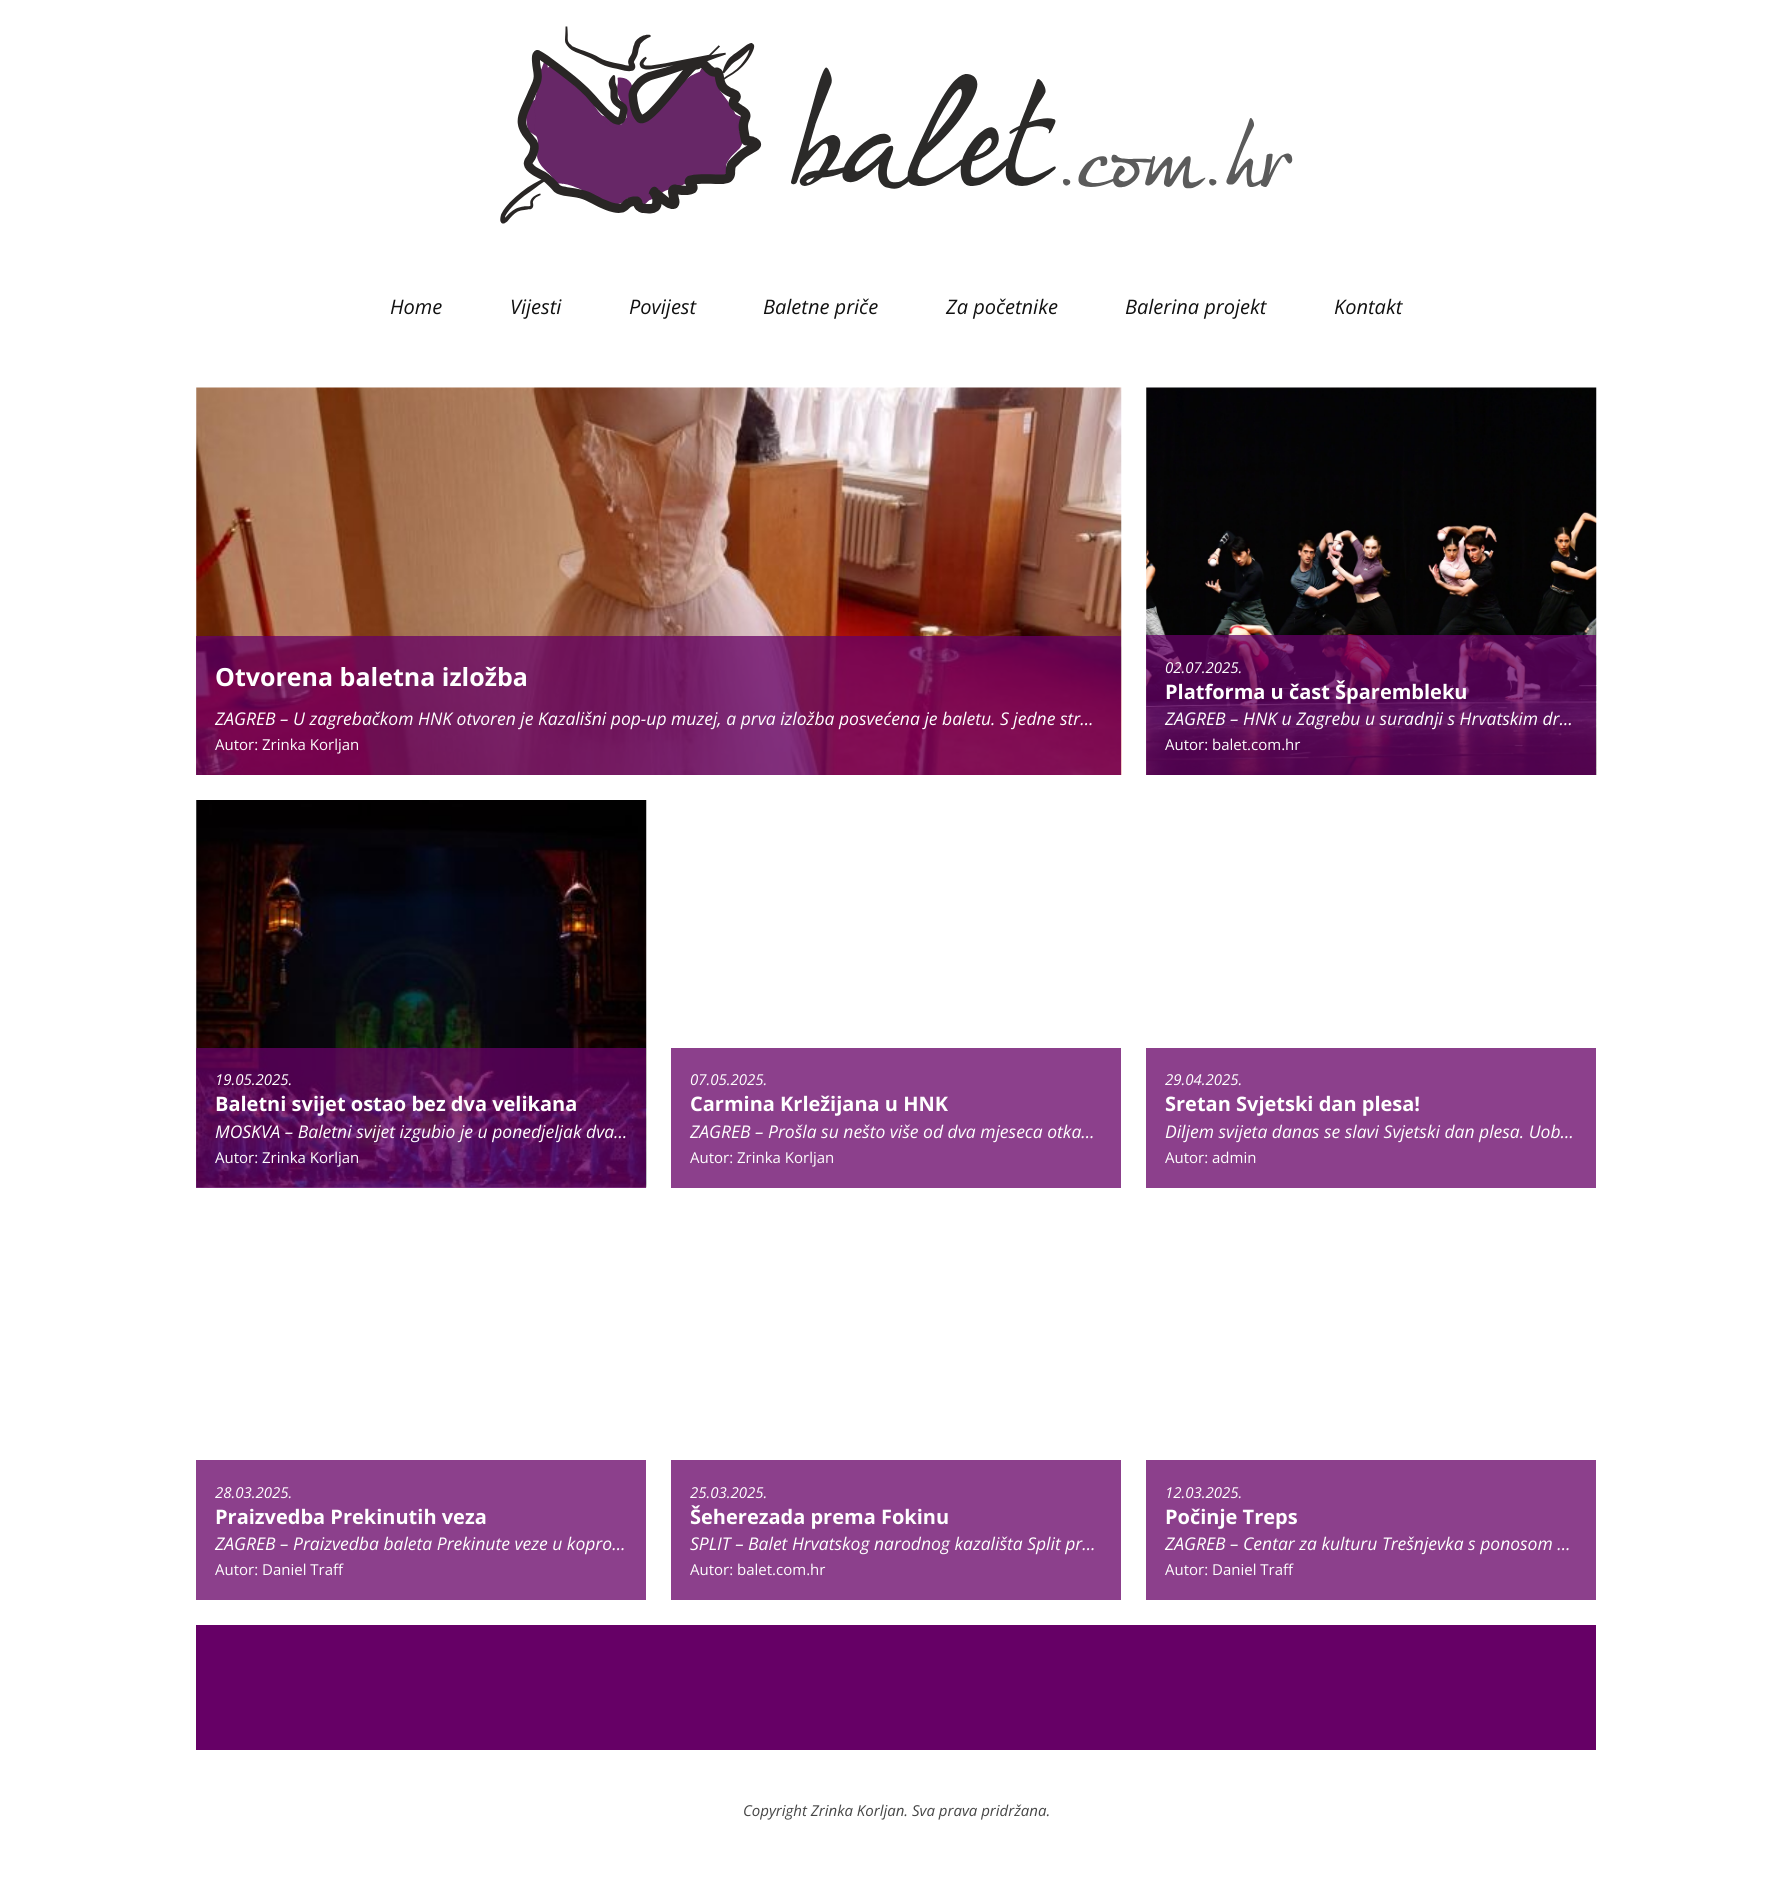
#include <cairo/cairo.h>
#include <math.h>
#include <stddef.h>

static cairo_t *cr;

static void use_color(int r, int g, int b) {
  cairo_set_source_rgb(cr, r / 255.0, g / 255.0, b / 255.0);
}

static void text(double x, double y, const char *s, const char *family, double size, int italic, int bold, int r, int g, int b) {
  cairo_select_font_face(cr, family, italic ? CAIRO_FONT_SLANT_ITALIC : CAIRO_FONT_SLANT_NORMAL,
    bold ? CAIRO_FONT_WEIGHT_BOLD : CAIRO_FONT_WEIGHT_NORMAL);
  cairo_set_font_size(cr, size);
  use_color(r, g, b);
  cairo_move_to(cr, x, y);
  cairo_show_text(cr, s);
}

static void box(double x, double y, double w, double h, int r, int g, int b) {
  use_color(r, g, b);
  cairo_rectangle(cr, x, y, w, h);
  cairo_fill(cr);
}

static void picture(const char *path, double x, double y, double w, double h) {
  cairo_surface_t *image = cairo_image_surface_create_from_png(path);
  cairo_save(cr);
  cairo_set_source_surface(cr, image, x, y);
  cairo_rectangle(cr, x, y, w, h);
  cairo_fill(cr);
  cairo_restore(cr);
  cairo_surface_destroy(image);
}

static void draw(void) {
  use_color(255, 255, 255);
  cairo_paint(cr);
  picture("img_01.png", 500, 26, 793, 198);
  picture("img_02.png", 196, 387, 926, 388);
  cairo_set_source_rgba(cr, 0.4, 0, 0.4, 0.75);
  cairo_rectangle(cr, 196, 636, 925, 139);
  cairo_fill(cr);
  picture("img_03.png", 1146, 387, 451, 388);
  cairo_rectangle(cr, 1146, 635, 450, 140);
  cairo_fill(cr);
  picture("img_04.png", 196, 800, 451, 388);
  cairo_rectangle(cr, 196, 1048, 450, 140);
  cairo_fill(cr);
  box(671, 1048, 450, 140, 140, 64, 140);
  box(1146, 1048, 450, 140, 140, 64, 140);
  box(196, 1460, 450, 140, 140, 64, 140);
  box(671, 1460, 450, 140, 140, 64, 140);
  box(1146, 1460, 450, 140, 140, 64, 140);
  box(196, 1625, 1400, 125, 102, 0, 102);
  text(390, 314, "Home", "Open Sans", 20, 1, 0, 17, 17, 17);
  text(510, 314, "Vijesti", "Open Sans", 20, 1, 0, 17, 17, 17);
  text(629, 314, "Povijest", "Open Sans", 20, 1, 0, 17, 17, 17);
  text(763, 314, "Baletne priče", "Open Sans", 20, 1, 0, 17, 17, 17);
  text(946, 314, "Za početnike", "Open Sans", 20, 1, 0, 17, 17, 17);
  text(1125, 314, "Balerina projekt", "Open Sans", 20, 1, 0, 17, 17, 17);
  text(1334, 314, "Kontakt", "Open Sans", 20, 1, 0, 17, 17, 17);
  text(215, 686, "Otvorena baletna izložba", "Open Sans", 25, 0, 1, 255, 255, 255);
  text(215, 725, "ZAGREB – U zagrebačkom HNK otvoren je Kazališni pop-up muzej, a prva izložba posvećena je baletu. S jedne str…", "Open Sans", 17.5, 1, 0, 255, 255, 255);
  text(215, 750, "Autor: Zrinka Korljan", "Open Sans", 15, 0, 0, 255, 255, 255);
  text(1165, 673, "02.07.2025.", "Open Sans", 15, 1, 0, 255, 255, 255);
  text(1165, 699, "Platforma u čast Šparembleku", "Open Sans", 20, 0, 1, 255, 255, 255);
  text(1165, 725, "ZAGREB – HNK u Zagrebu u suradnji s Hrvatskim dr…", "Open Sans", 17.5, 1, 0, 255, 255, 255);
  text(1165, 750, "Autor: balet.com.hr", "Open Sans", 15, 0, 0, 255, 255, 255);
  text(215, 1085, "19.05.2025.", "Open Sans", 15, 1, 0, 255, 255, 255);
  text(215, 1111, "Baletni svijet ostao bez dva velikana", "Open Sans", 20, 0, 1, 255, 255, 255);
  text(215, 1138, "MOSKVA – Baletni svijet izgubio je u ponedjeljak dva…", "Open Sans", 17.5, 1, 0, 255, 255, 255);
  text(215, 1163, "Autor: Zrinka Korljan", "Open Sans", 15, 0, 0, 255, 255, 255);
  text(690, 1085, "07.05.2025.", "Open Sans", 15, 1, 0, 255, 255, 255);
  text(690, 1111, "Carmina Krležijana u HNK", "Open Sans", 20, 0, 1, 255, 255, 255);
  text(690, 1138, "ZAGREB – Prošla su nešto više od dva mjeseca otka…", "Open Sans", 17.5, 1, 0, 255, 255, 255);
  text(690, 1163, "Autor: Zrinka Korljan", "Open Sans", 15, 0, 0, 255, 255, 255);
  text(1165, 1085, "29.04.2025.", "Open Sans", 15, 1, 0, 255, 255, 255);
  text(1165, 1111, "Sretan Svjetski dan plesa!", "Open Sans", 20, 0, 1, 255, 255, 255);
  text(1165, 1138, "Diljem svijeta danas se slavi Svjetski dan plesa. Uob…", "Open Sans", 17.5, 1, 0, 255, 255, 255);
  text(1165, 1163, "Autor: admin", "Open Sans", 15, 0, 0, 255, 255, 255);
  text(215, 1498, "28.03.2025.", "Open Sans", 15, 1, 0, 255, 255, 255);
  text(215, 1524, "Praizvedba Prekinutih veza", "Open Sans", 20, 0, 1, 255, 255, 255);
  text(215, 1550, "ZAGREB – Praizvedba baleta Prekinute veze u kopro…", "Open Sans", 17.5, 1, 0, 255, 255, 255);
  text(215, 1575, "Autor: Daniel Traff", "Open Sans", 15, 0, 0, 255, 255, 255);
  text(690, 1498, "25.03.2025.", "Open Sans", 15, 1, 0, 255, 255, 255);
  text(690, 1524, "Šeherezada prema Fokinu", "Open Sans", 20, 0, 1, 255, 255, 255);
  text(690, 1550, "SPLIT – Balet Hrvatskog narodnog kazališta Split pr…", "Open Sans", 17.5, 1, 0, 255, 255, 255);
  text(690, 1575, "Autor: balet.com.hr", "Open Sans", 15, 0, 0, 255, 255, 255);
  text(1165, 1498, "12.03.2025.", "Open Sans", 15, 1, 0, 255, 255, 255);
  text(1165, 1524, "Počinje Treps", "Open Sans", 20, 0, 1, 255, 255, 255);
  text(1165, 1550, "ZAGREB – Centar za kulturu Trešnjevka s ponosom …", "Open Sans", 17.5, 1, 0, 255, 255, 255);
  text(1165, 1575, "Autor: Daniel Traff", "Open Sans", 15, 0, 0, 255, 255, 255);
  text(743, 1816, "Copyright Zrinka Korljan. Sva prava pridržana.", "Open Sans", 15, 1, 0, 70, 70, 70);
}

int main(void) {
  cairo_surface_t *surface = cairo_image_surface_create(CAIRO_FORMAT_RGB24, 1792, 1887);
  cr = cairo_create(surface);
  cairo_font_options_t *options = cairo_font_options_create();
  cairo_font_options_set_hint_metrics(options, CAIRO_HINT_METRICS_OFF);
  cairo_font_options_set_hint_style(options, CAIRO_HINT_STYLE_NONE);
  cairo_set_font_options(cr, options);
  cairo_set_miter_limit(cr, 4);
  draw();
  cairo_surface_write_to_png(surface, "out.png");
  cairo_font_options_destroy(options);
  cairo_destroy(cr);
  cairo_surface_destroy(surface);
  return 0;
}
